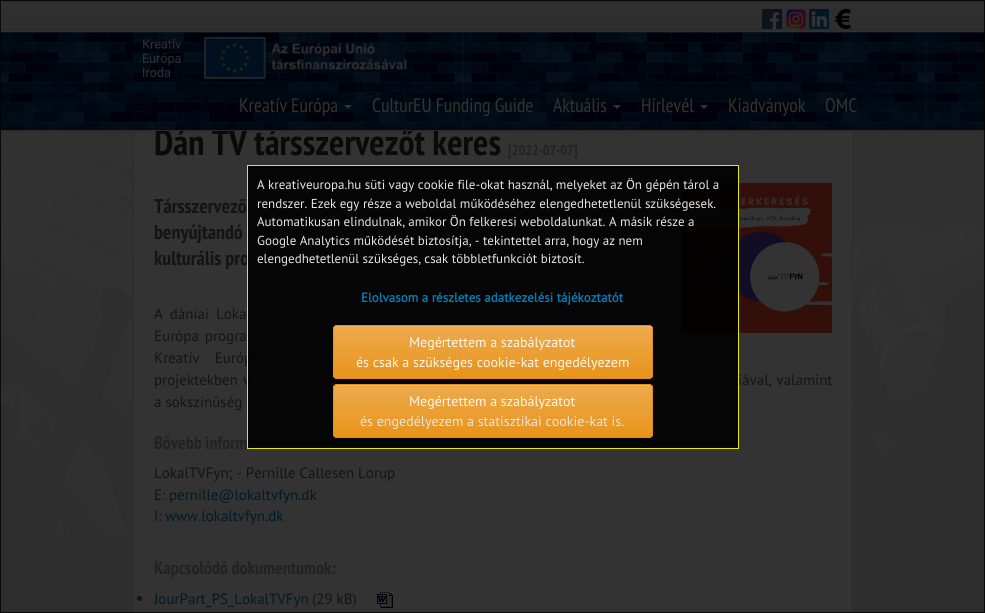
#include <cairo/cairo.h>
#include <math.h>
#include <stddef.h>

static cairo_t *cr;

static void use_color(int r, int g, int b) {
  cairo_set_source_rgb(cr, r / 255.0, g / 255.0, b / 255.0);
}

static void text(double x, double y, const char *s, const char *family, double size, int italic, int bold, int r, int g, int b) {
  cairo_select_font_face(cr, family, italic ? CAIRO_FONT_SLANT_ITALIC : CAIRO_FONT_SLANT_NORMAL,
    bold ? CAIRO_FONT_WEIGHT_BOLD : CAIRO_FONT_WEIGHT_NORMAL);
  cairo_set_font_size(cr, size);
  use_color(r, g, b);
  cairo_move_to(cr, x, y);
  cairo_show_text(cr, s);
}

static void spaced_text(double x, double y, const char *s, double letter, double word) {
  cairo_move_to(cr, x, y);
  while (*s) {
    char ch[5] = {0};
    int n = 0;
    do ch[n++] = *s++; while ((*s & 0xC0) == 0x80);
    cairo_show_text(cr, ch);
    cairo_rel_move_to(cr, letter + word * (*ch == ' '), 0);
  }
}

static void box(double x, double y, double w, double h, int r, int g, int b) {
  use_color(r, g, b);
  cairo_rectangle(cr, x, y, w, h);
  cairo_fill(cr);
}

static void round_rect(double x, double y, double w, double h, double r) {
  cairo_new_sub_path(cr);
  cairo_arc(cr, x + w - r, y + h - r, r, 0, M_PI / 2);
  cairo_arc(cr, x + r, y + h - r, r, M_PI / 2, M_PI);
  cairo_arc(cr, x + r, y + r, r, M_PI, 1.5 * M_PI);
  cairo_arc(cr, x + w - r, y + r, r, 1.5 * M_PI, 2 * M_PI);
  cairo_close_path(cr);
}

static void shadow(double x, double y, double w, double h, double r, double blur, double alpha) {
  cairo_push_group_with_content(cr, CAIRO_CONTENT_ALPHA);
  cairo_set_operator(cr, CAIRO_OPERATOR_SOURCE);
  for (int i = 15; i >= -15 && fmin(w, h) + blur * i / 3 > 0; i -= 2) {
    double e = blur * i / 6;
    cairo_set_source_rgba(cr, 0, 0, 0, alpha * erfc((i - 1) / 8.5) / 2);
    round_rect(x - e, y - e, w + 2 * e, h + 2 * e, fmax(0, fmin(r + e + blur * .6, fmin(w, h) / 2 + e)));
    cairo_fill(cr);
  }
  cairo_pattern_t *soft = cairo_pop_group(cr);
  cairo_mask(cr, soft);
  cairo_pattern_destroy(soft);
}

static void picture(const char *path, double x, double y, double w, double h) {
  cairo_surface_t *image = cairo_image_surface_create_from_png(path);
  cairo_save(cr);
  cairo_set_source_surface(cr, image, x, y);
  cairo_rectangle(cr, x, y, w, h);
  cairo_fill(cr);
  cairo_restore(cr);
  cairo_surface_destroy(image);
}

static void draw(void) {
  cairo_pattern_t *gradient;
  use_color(255, 255, 255);
  cairo_paint(cr);
  picture("img_01.png", 0, 131, 985, 482);
  gradient = cairo_pattern_create_linear(493, -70, 493, 2);
  cairo_pattern_add_color_stop_rgba(gradient, 0, 0.188, 0.188, 0.188, 1);
  cairo_pattern_add_color_stop_rgba(gradient, 1, 0.161, 0.161, 0.161, 1);
  cairo_set_source(cr, gradient);
  cairo_pattern_destroy(gradient);
  cairo_rectangle(cr, 0, 0, 985, 2);
  cairo_fill(cr);
  gradient = cairo_pattern_create_linear(493, 2, 493, 74);
  cairo_pattern_add_color_stop_rgba(gradient, 0, 0.188, 0.188, 0.188, 1);
  cairo_pattern_add_color_stop_rgba(gradient, 1, 0.161, 0.161, 0.161, 1);
  cairo_set_source(cr, gradient);
  cairo_pattern_destroy(gradient);
  cairo_rectangle(cr, 0, 2, 985, 29);
  cairo_fill(cr);
  picture("img_02.png", 762, 9, 20, 20);
  picture("img_03.png", 786, 9, 20, 20);
  picture("img_04.png", 809, 9, 20, 20);
  picture("img_05.png", 835, 9, 16, 20);
  box(134, 131, 718, 482, 51, 51, 51);
  use_color(44, 44, 44);
  cairo_new_path(cr);
  cairo_move_to(cr, 853, 92);
  cairo_line_to(cr, 853, 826);
  cairo_line_to(cr, 852, 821);
  cairo_line_to(cr, 852, 93);
  cairo_close_path(cr);
  cairo_fill(cr);
  cairo_new_path(cr);
  cairo_move_to(cr, 133, 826);
  cairo_line_to(cr, 133, 92);
  cairo_line_to(cr, 134, 93);
  cairo_line_to(cr, 134, 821);
  cairo_close_path(cr);
  cairo_fill(cr);
  use_color(0, 0, 0);
  shadow(0, 32, 985, 100, 0, 2.5, 0.07);
  box(0, 31, 985, 1, 51, 51, 51);
  picture("img_09.png", 682, 183, 150, 150);
  use_color(20, 20, 20);
  cairo_arc(cr, 139.5, 598.5, 2.5, 0, 2 * M_PI);
  cairo_fill(cr);
  picture("img_10.png", 377, 592, 16, 16);
  text(154, 155, "Dán TV társszervezőt keres", "PT Sans Narrow", 36, 0, 1, 10, 10, 10);
  picture("img_06.png", 0, 32, 985, 98);
  use_color(51, 51, 48);
  cairo_new_path(cr);
  cairo_move_to(cr, 700, 105);
  cairo_line_to(cr, 708, 105);
  cairo_line_to(cr, 704, 109);
  cairo_close_path(cr);
  cairo_fill(cr);
  cairo_new_path(cr);
  cairo_move_to(cr, 613, 105);
  cairo_line_to(cr, 621, 105);
  cairo_line_to(cr, 617, 109);
  cairo_close_path(cr);
  cairo_fill(cr);
  cairo_new_path(cr);
  cairo_move_to(cr, 344, 105);
  cairo_line_to(cr, 352, 105);
  cairo_line_to(cr, 348, 109);
  cairo_close_path(cr);
  cairo_fill(cr);
  picture("img_08.png", 204, 37, 203, 43);
  picture("img_07.png", 143, 39, 38, 38);
  box(0, 130, 985, 1, 41, 41, 41);
  cairo_set_source_rgba(cr, 0.2, 0.2, 0.2, 0.15);
  cairo_rectangle(cr, 0, 32, 985, 1);
  cairo_fill(cr);
  cairo_rectangle(cr, 0.5, 0.5, 984, 612);
  cairo_set_source_rgba(cr, 0, 0, 0, 0.8);
  cairo_set_line_width(cr, 1);
  cairo_stroke(cr);
  text(825, 112, "OMC", "PT Sans Narrow", 19.5, 0, 0, 51, 51, 48);
  text(728, 112, "Kiadványok", "PT Sans Narrow", 19.5, 0, 0, 51, 51, 48);
  text(641, 112, "Hírlevél", "PT Sans Narrow", 19.5, 0, 0, 51, 51, 48);
  text(553, 112, "Aktuális", "PT Sans Narrow", 19.5, 0, 0, 51, 51, 48);
  text(372, 112, "CulturEU Funding Guide", "PT Sans Narrow", 19.5, 0, 0, 51, 51, 48);
  text(239, 112, "Kreatív Európa", "PT Sans Narrow", 19.5, 0, 0, 51, 51, 48);
  text(508, 155, "[2022-07-07]", "PT Sans Narrow", 14, 0, 1, 34, 34, 34);
  text(154, 213, "Társszervező", "PT Sans Narrow", 20, 0, 1, 20, 20, 20);
  text(154, 239, "benyújtandó", "PT Sans Narrow", 20, 0, 1, 20, 20, 20);
  text(154, 265, "kulturális pro", "PT Sans Narrow", 20, 0, 1, 20, 20, 20);
  cairo_select_font_face(cr, "PT Sans", CAIRO_FONT_SLANT_NORMAL, CAIRO_FONT_WEIGHT_NORMAL);
  cairo_set_font_size(cr, 15);
  spaced_text(154, 319, "A dániai Loka", 0, 3);
  spaced_text(154, 341, "Európa progra", 0, 2);
  spaced_text(154, 363, "Kreatív Európ", 0, 11);
  spaced_text(154, 385, "projektekben v", 0, 1);
  spaced_text(738, 385, "iával, valamint", 0, 1);
  text(154, 407, "a sokszínűség", "PT Sans", 15, 0, 0, 20, 20, 20);
  text(154, 449, "Bővebb inform", "PT Sans Narrow", 18, 0, 1, 34, 34, 34);
  text(154, 478, "LokalTVFyn; - Pernille Callesen Lorup", "PT Sans", 15, 0, 0, 20, 20, 20);
  text(154, 500, "E:", "PT Sans", 15, 0, 0, 20, 20, 20);
  text(169, 500, "pernille@lokaltvfyn.dk", "PT Sans", 15, 0, 0, 0, 26, 40);
  text(154, 521, "I:", "PT Sans", 15, 0, 0, 20, 20, 20);
  text(165, 521, "www.lokaltvfyn.dk", "PT Sans", 15, 0, 0, 0, 26, 40);
  text(154, 574, "Kapcsolódó dokumentumok:", "PT Sans Narrow", 18, 0, 1, 34, 34, 34);
  text(154, 604, "JourPart_PS_LokalTVFyn", "PT Sans", 15, 0, 0, 0, 26, 40);
  text(312, 604, "(29 kB)", "PT Sans", 15, 0, 0, 20, 20, 20);
  cairo_set_source_rgba(cr, 0, 0, 0, 0.9);
  cairo_rectangle(cr, 247, 165, 492, 284);
  cairo_fill(cr);
  cairo_rectangle(cr, 247.5, 165.5, 491, 283);
  cairo_set_source_rgba(cr, 1, 1, 0, 0.9);
  cairo_stroke(cr);
  text(257, 189, "A kreativeuropa.hu süti vagy cookie file-okat használ, melyeket az Ön gépén tárol a", "PT Sans", 13, 0, 0, 230, 230, 230);
  text(257, 208, "rendszer. Ezek egy része a weboldal működéséhez elengedhetetlenül szükségesek.", "PT Sans", 13, 0, 0, 230, 230, 230);
  text(257, 226, "Automatikusan elindulnak, amikor Ön felkeresi weboldalunkat.", "PT Sans", 13, 0, 0, 230, 230, 230);
  text(609, 226, "A másik része a", "PT Sans", 13, 0, 0, 230, 230, 230);
  text(257, 245, "Google Analytics működését biztosítja, - tekintettel arra, hogy az nem", "PT Sans", 13, 0, 0, 230, 230, 230);
  text(257, 263, "elengedhetetlenül szükséges, csak többletfunkciót biztosít.", "PT Sans", 13, 0, 0, 230, 230, 230);
  text(361, 302, "Elolvasom a részletes adatkezelési tájékoztatót", "PT Sans", 13, 0, 1, 5, 124, 183);
  cairo_set_source_rgba(cr, 0.941, 0.678, 0.306, 0.9);
  round_rect(333, 325, 320, 54, 4);
  cairo_fill(cr);
  cairo_save(cr);
  round_rect(333, 325, 320, 54, 4);
  cairo_clip(cr);
  gradient = cairo_pattern_create_linear(493, 326, 493, 378);
  cairo_pattern_add_color_stop_rgba(gradient, 0, 0.941, 0.678, 0.306, 0.9);
  cairo_pattern_add_color_stop_rgba(gradient, 1, 0.922, 0.576, 0.086, 0.9);
  cairo_set_source(cr, gradient);
  cairo_pattern_destroy(gradient);
  cairo_rectangle(cr, 333, 326, 320, 52);
  cairo_fill(cr);
  cairo_restore(cr);
  use_color(237, 180, 101);
  cairo_new_path(cr);
  cairo_move_to(cr, 337, 327);
  cairo_line_to(cr, 649, 327);
  cairo_curve_to(cr, 650, 327, 652, 328, 652, 330);
  cairo_line_to(cr, 651, 327);
  cairo_line_to(cr, 650, 326);
  cairo_line_to(cr, 337, 326);
  cairo_curve_to(cr, 335, 326, 334, 328, 334, 330);
  cairo_curve_to(cr, 334, 328, 335, 327, 337, 327);
  cairo_close_path(cr);
  cairo_fill(cr);
  round_rect(333.5, 325.5, 319, 53, 3.5);
  cairo_set_source_rgba(cr, 0.89, 0.553, 0.075, 0.9);
  cairo_stroke(cr);
  text(409, 347, "Megértettem a szabályzatot", "PT Sans", 14, 0, 0, 253, 246, 236);
  text(356, 367, "és csak a szükséges cookie-kat engedélyezem", "PT Sans", 14, 0, 0, 253, 246, 236);
  cairo_set_source_rgba(cr, 0.941, 0.678, 0.306, 0.9);
  round_rect(333, 384, 320, 54, 4);
  cairo_fill(cr);
  cairo_save(cr);
  round_rect(333, 384, 320, 54, 4);
  cairo_clip(cr);
  gradient = cairo_pattern_create_linear(493, 385, 493, 437);
  cairo_pattern_add_color_stop_rgba(gradient, 0, 0.941, 0.678, 0.306, 0.9);
  cairo_pattern_add_color_stop_rgba(gradient, 1, 0.922, 0.576, 0.086, 0.9);
  cairo_set_source(cr, gradient);
  cairo_pattern_destroy(gradient);
  cairo_rectangle(cr, 333, 385, 320, 52);
  cairo_fill(cr);
  cairo_restore(cr);
  use_color(240, 182, 101);
  cairo_new_path(cr);
  cairo_move_to(cr, 337, 386);
  cairo_line_to(cr, 649, 386);
  cairo_curve_to(cr, 650, 386, 652, 387, 652, 389);
  cairo_line_to(cr, 651, 386);
  cairo_line_to(cr, 650, 385);
  cairo_line_to(cr, 337, 385);
  cairo_curve_to(cr, 335, 385, 334, 387, 334, 389);
  cairo_curve_to(cr, 334, 387, 335, 386, 337, 386);
  cairo_close_path(cr);
  cairo_fill(cr);
  round_rect(333.5, 384.5, 319, 53, 3.5);
  cairo_set_source_rgba(cr, 0.89, 0.553, 0.075, 0.9);
  cairo_stroke(cr);
  text(409, 406, "Megértettem a szabályzatot", "PT Sans", 14, 0, 0, 253, 246, 236);
  text(360, 426, "és engedélyezem a statisztikai cookie-kat is.", "PT Sans", 14, 0, 0, 230, 230, 230);
}

int main(void) {
  cairo_surface_t *surface = cairo_image_surface_create(CAIRO_FORMAT_RGB24, 985, 613);
  cr = cairo_create(surface);
  cairo_font_options_t *options = cairo_font_options_create();
  cairo_font_options_set_hint_metrics(options, CAIRO_HINT_METRICS_OFF);
  cairo_font_options_set_hint_style(options, CAIRO_HINT_STYLE_NONE);
  cairo_set_font_options(cr, options);
  cairo_set_miter_limit(cr, 4);
  draw();
  cairo_surface_write_to_png(surface, "out.png");
  cairo_font_options_destroy(options);
  cairo_destroy(cr);
  cairo_surface_destroy(surface);
  return 0;
}
